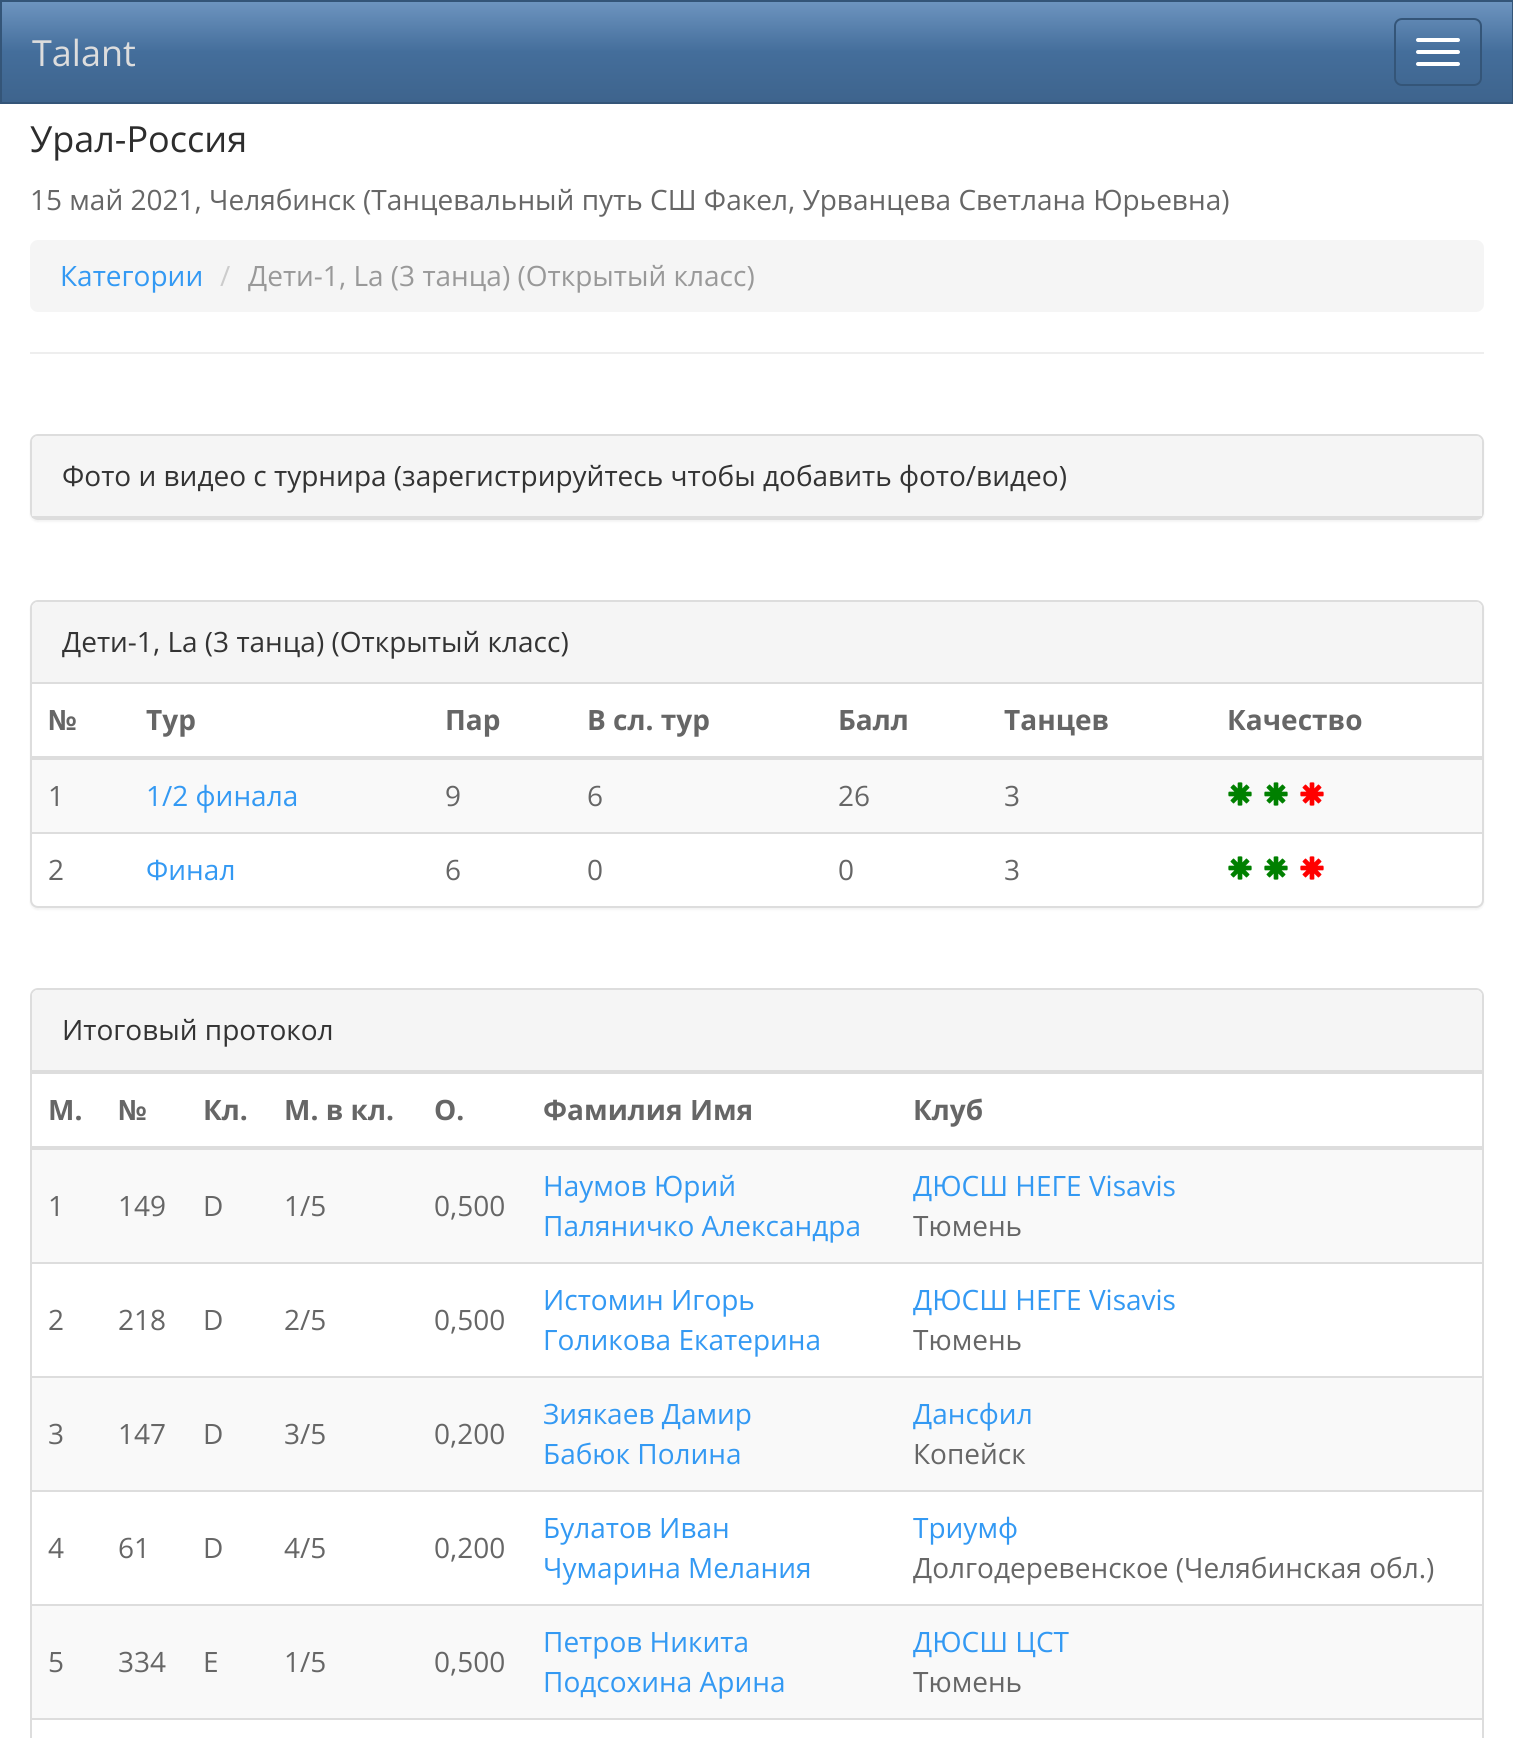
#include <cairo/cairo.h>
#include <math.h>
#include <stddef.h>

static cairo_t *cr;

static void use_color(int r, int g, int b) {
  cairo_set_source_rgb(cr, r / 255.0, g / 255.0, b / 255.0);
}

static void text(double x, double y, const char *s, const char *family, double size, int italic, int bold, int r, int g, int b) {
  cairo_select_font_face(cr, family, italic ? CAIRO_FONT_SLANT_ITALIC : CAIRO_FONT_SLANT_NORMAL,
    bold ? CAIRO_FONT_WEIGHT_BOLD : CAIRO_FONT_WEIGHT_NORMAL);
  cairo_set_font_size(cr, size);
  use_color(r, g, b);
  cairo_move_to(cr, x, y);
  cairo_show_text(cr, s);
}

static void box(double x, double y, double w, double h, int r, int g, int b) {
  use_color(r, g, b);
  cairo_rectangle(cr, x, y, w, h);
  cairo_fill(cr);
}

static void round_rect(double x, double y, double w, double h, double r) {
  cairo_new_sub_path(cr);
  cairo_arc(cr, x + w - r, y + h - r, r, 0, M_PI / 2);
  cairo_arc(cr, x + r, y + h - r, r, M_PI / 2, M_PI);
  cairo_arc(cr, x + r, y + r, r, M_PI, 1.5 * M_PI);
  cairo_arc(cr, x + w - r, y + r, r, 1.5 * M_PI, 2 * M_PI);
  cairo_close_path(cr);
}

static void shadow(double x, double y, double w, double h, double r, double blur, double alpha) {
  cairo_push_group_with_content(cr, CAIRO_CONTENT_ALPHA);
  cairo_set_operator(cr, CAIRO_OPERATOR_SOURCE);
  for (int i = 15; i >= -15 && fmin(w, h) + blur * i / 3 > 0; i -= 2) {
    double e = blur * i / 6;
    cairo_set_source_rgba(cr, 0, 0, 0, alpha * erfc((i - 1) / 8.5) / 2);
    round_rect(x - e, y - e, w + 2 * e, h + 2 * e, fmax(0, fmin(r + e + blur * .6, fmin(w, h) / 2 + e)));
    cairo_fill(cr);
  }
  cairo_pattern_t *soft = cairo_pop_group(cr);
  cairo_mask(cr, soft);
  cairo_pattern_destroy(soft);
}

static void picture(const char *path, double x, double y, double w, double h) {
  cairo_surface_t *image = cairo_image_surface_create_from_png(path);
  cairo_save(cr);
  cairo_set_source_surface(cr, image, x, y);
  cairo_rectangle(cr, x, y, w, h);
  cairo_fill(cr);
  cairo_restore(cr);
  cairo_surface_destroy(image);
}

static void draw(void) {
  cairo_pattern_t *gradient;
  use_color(255, 255, 255);
  cairo_paint(cr);
  gradient = cairo_pattern_create_linear(757, 2, 757, 102);
  cairo_pattern_add_color_stop_rgba(gradient, 0, 0.427, 0.58, 0.749, 1);
  cairo_pattern_add_color_stop_rgba(gradient, 0.5, 0.267, 0.431, 0.608, 1);
  cairo_pattern_add_color_stop_rgba(gradient, 1, 0.243, 0.392, 0.553, 1);
  cairo_set_source(cr, gradient);
  cairo_pattern_destroy(gradient);
  cairo_rectangle(cr, 2, 2, 1510, 100);
  cairo_fill(cr);
  cairo_rectangle(cr, 1, 1, 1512, 102);
  use_color(52, 85, 120);
  cairo_stroke(cr);
  round_rect(1395, 19, 86, 66, 7);
  cairo_stroke(cr);
  use_color(255, 255, 255);
  round_rect(1416, 38, 44, 4, 2);
  cairo_fill(cr);
  round_rect(1416, 50, 44, 4, 2);
  cairo_fill(cr);
  round_rect(1416, 62, 44, 4, 2);
  cairo_fill(cr);
  use_color(245, 245, 245);
  round_rect(30, 240, 1454, 72, 8);
  cairo_fill(cr);
  box(30, 352, 1454, 2, 238, 238, 238);
  use_color(0, 0, 0);
  shadow(30, 436, 1454, 86, 8, 1, 0.05);
  round_rect(31, 435, 1452, 84, 7);
  use_color(221, 221, 221);
  cairo_stroke(cr);
  use_color(245, 245, 245);
  cairo_new_path(cr);
  cairo_move_to(cr, 38, 436);
  cairo_line_to(cr, 1476, 436);
  cairo_curve_to(cr, 1479.5, 436, 1482, 438.5, 1482, 442);
  cairo_line_to(cr, 1482, 518);
  cairo_line_to(cr, 32, 518);
  cairo_line_to(cr, 32, 442);
  cairo_curve_to(cr, 32, 438.5, 34.5, 436, 38, 436);
  cairo_close_path(cr);
  cairo_fill(cr);
  box(32, 516, 1450, 2, 221, 221, 221);
  use_color(0, 0, 0);
  shadow(30, 602, 1454, 308, 8, 1, 0.05);
  use_color(255, 255, 255);
  round_rect(31, 601, 1452, 306, 7);
  cairo_fill_preserve(cr);
  use_color(221, 221, 221);
  cairo_stroke(cr);
  use_color(245, 245, 245);
  cairo_new_path(cr);
  cairo_move_to(cr, 38, 602);
  cairo_line_to(cr, 1476, 602);
  cairo_curve_to(cr, 1479.5, 602, 1482, 604.5, 1482, 608);
  cairo_line_to(cr, 1482, 684);
  cairo_line_to(cr, 32, 684);
  cairo_line_to(cr, 32, 608);
  cairo_curve_to(cr, 32, 604.5, 34.5, 602, 38, 602);
  cairo_close_path(cr);
  cairo_fill(cr);
  box(32, 682, 1450, 2, 221, 221, 221);
  box(30, 756, 1454, 4, 221, 221, 221);
  box(32, 760, 1450, 72, 249, 249, 249);
  picture("img_01.png", 1228, 782, 24, 24);
  picture("img_01.png", 1264, 782, 24, 24);
  picture("img_02.png", 1300, 782, 24, 24);
  box(32, 832, 1452, 2, 221, 221, 221);
  picture("img_03.png", 1228, 856, 24, 24);
  picture("img_03.png", 1264, 856, 24, 24);
  picture("img_04.png", 1300, 856, 24, 24);
  round_rect(31, 989, 1452, 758, 7);
  cairo_stroke(cr);
  use_color(245, 245, 245);
  cairo_new_path(cr);
  cairo_move_to(cr, 38, 990);
  cairo_line_to(cr, 1476, 990);
  cairo_curve_to(cr, 1479.5, 990, 1482, 992.5, 1482, 996);
  cairo_line_to(cr, 1482, 1072);
  cairo_line_to(cr, 32, 1072);
  cairo_line_to(cr, 32, 996);
  cairo_curve_to(cr, 32, 992.5, 34.5, 990, 38, 990);
  cairo_close_path(cr);
  cairo_fill(cr);
  box(32, 1070, 1450, 2, 221, 221, 221);
  box(32, 1072, 1452, 2, 221, 221, 221);
  box(30, 1146, 1454, 4, 221, 221, 221);
  box(32, 1150, 1450, 112, 249, 249, 249);
  box(32, 1262, 1452, 2, 221, 221, 221);
  box(32, 1378, 1450, 112, 249, 249, 249);
  box(32, 1376, 1452, 2, 221, 221, 221);
  box(32, 1490, 1452, 2, 221, 221, 221);
  box(32, 1606, 1450, 112, 249, 249, 249);
  box(32, 1604, 1452, 2, 221, 221, 221);
  box(32, 1718, 1452, 2, 221, 221, 221);
  text(32, 66, "Talant", "Open Sans", 36, 0, 0, 221, 221, 221);
  text(30, 152, "Урал-Россия", "Open Sans", 36, 0, 0, 45, 45, 45);
  text(30, 210, "15 май 2021, Челябинск (Танцевальный путь СШ Факел, Урванцева Светлана Юрьевна)", "Open Sans", 28, 0, 0, 102, 102, 102);
  text(60, 286, "Категории", "Open Sans", 28, 0, 0, 51, 153, 243);
  text(220, 286, "/", "Open Sans", 28, 0, 0, 204, 204, 204);
  text(248, 286, "Дети-1, La (3 танца) (Открытый класс)", "Open Sans", 28, 0, 0, 153, 153, 153);
  text(62, 486, "Фото и видео с турнира (зарегистрируйтесь чтобы добавить фото/видео)", "Open Sans", 28, 0, 0, 51, 51, 51);
  text(62, 652, "Дети-1, La (3 танца) (Открытый класс)", "Open Sans", 28, 0, 0, 51, 51, 51);
  text(48, 730, "№", "Open Sans", 28, 0, 1, 102, 102, 102);
  text(146, 730, "Тур", "Open Sans", 28, 0, 1, 102, 102, 102);
  text(445, 730, "Пар", "Open Sans", 28, 0, 1, 102, 102, 102);
  text(587, 730, "В сл. тур", "Open Sans", 28, 0, 1, 102, 102, 102);
  text(838, 730, "Балл", "Open Sans", 28, 0, 1, 102, 102, 102);
  text(1004, 730, "Танцев", "Open Sans", 28, 0, 1, 102, 102, 102);
  text(1227, 730, "Качество", "Open Sans", 28, 0, 1, 102, 102, 102);
  text(48, 806, "1", "Open Sans", 28, 0, 0, 102, 102, 102);
  text(146, 806, "1/2 финала", "Open Sans", 28, 0, 0, 51, 153, 243);
  text(445, 806, "9", "Open Sans", 28, 0, 0, 102, 102, 102);
  text(587, 806, "6", "Open Sans", 28, 0, 0, 102, 102, 102);
  text(838, 806, "26", "Open Sans", 28, 0, 0, 102, 102, 102);
  text(1004, 806, "3", "Open Sans", 28, 0, 0, 102, 102, 102);
  text(48, 880, "2", "Open Sans", 28, 0, 0, 102, 102, 102);
  text(146, 880, "Финал", "Open Sans", 28, 0, 0, 51, 153, 243);
  text(445, 880, "6", "Open Sans", 28, 0, 0, 102, 102, 102);
  text(587, 880, "0", "Open Sans", 28, 0, 0, 102, 102, 102);
  text(838, 880, "0", "Open Sans", 28, 0, 0, 102, 102, 102);
  text(1004, 880, "3", "Open Sans", 28, 0, 0, 102, 102, 102);
  text(62, 1040, "Итоговый протокол", "Open Sans", 28, 0, 0, 51, 51, 51);
  text(48, 1120, "М.", "Open Sans", 28, 0, 1, 102, 102, 102);
  text(118, 1120, "№", "Open Sans", 28, 0, 1, 102, 102, 102);
  text(203, 1120, "Кл.", "Open Sans", 28, 0, 1, 102, 102, 102);
  text(284, 1120, "М. в кл.", "Open Sans", 28, 0, 1, 102, 102, 102);
  text(434, 1120, "О.", "Open Sans", 28, 0, 1, 102, 102, 102);
  text(543, 1120, "Фамилия Имя", "Open Sans", 28, 0, 1, 102, 102, 102);
  text(913, 1120, "Клуб", "Open Sans", 28, 0, 1, 102, 102, 102);
  text(48, 1216, "1", "Open Sans", 28, 0, 0, 102, 102, 102);
  text(118, 1216, "149", "Open Sans", 28, 0, 0, 102, 102, 102);
  text(203, 1216, "D", "Open Sans", 28, 0, 0, 102, 102, 102);
  text(284, 1216, "1/5", "Open Sans", 28, 0, 0, 102, 102, 102);
  text(434, 1216, "0,500", "Open Sans", 28, 0, 0, 102, 102, 102);
  text(543, 1196, "Наумов Юрий", "Open Sans", 28, 0, 0, 51, 153, 243);
  text(543, 1236, "Паляничко Александра", "Open Sans", 28, 0, 0, 51, 153, 243);
  text(913, 1196, "ДЮСШ НЕГЕ Visavis", "Open Sans", 28, 0, 0, 51, 153, 243);
  text(913, 1236, "Тюмень", "Open Sans", 28, 0, 0, 102, 102, 102);
  text(48, 1330, "2", "Open Sans", 28, 0, 0, 102, 102, 102);
  text(118, 1330, "218", "Open Sans", 28, 0, 0, 102, 102, 102);
  text(203, 1330, "D", "Open Sans", 28, 0, 0, 102, 102, 102);
  text(284, 1330, "2/5", "Open Sans", 28, 0, 0, 102, 102, 102);
  text(434, 1330, "0,500", "Open Sans", 28, 0, 0, 102, 102, 102);
  text(543, 1310, "Истомин Игорь", "Open Sans", 28, 0, 0, 51, 153, 243);
  text(543, 1350, "Голикова Екатерина", "Open Sans", 28, 0, 0, 51, 153, 243);
  text(913, 1310, "ДЮСШ НЕГЕ Visavis", "Open Sans", 28, 0, 0, 51, 153, 243);
  text(913, 1350, "Тюмень", "Open Sans", 28, 0, 0, 102, 102, 102);
  text(48, 1444, "3", "Open Sans", 28, 0, 0, 102, 102, 102);
  text(118, 1444, "147", "Open Sans", 28, 0, 0, 102, 102, 102);
  text(203, 1444, "D", "Open Sans", 28, 0, 0, 102, 102, 102);
  text(284, 1444, "3/5", "Open Sans", 28, 0, 0, 102, 102, 102);
  text(434, 1444, "0,200", "Open Sans", 28, 0, 0, 102, 102, 102);
  text(543, 1424, "Зиякаев Дамир", "Open Sans", 28, 0, 0, 51, 153, 243);
  text(543, 1464, "Бабюк Полина", "Open Sans", 28, 0, 0, 51, 153, 243);
  text(913, 1424, "Дансфил", "Open Sans", 28, 0, 0, 51, 153, 243);
  text(913, 1464, "Копейск", "Open Sans", 28, 0, 0, 102, 102, 102);
  text(48, 1558, "4", "Open Sans", 28, 0, 0, 102, 102, 102);
  text(118, 1558, "61", "Open Sans", 28, 0, 0, 102, 102, 102);
  text(203, 1558, "D", "Open Sans", 28, 0, 0, 102, 102, 102);
  text(284, 1558, "4/5", "Open Sans", 28, 0, 0, 102, 102, 102);
  text(434, 1558, "0,200", "Open Sans", 28, 0, 0, 102, 102, 102);
  text(543, 1538, "Булатов Иван", "Open Sans", 28, 0, 0, 51, 153, 243);
  text(543, 1578, "Чумарина Мелания", "Open Sans", 28, 0, 0, 51, 153, 243);
  text(913, 1538, "Триумф", "Open Sans", 28, 0, 0, 51, 153, 243);
  text(913, 1578, "Долгодеревенское (Челябинская обл.)", "Open Sans", 28, 0, 0, 102, 102, 102);
  text(48, 1672, "5", "Open Sans", 28, 0, 0, 102, 102, 102);
  text(118, 1672, "334", "Open Sans", 28, 0, 0, 102, 102, 102);
  text(203, 1672, "E", "Open Sans", 28, 0, 0, 102, 102, 102);
  text(284, 1672, "1/5", "Open Sans", 28, 0, 0, 102, 102, 102);
  text(434, 1672, "0,500", "Open Sans", 28, 0, 0, 102, 102, 102);
  text(543, 1652, "Петров Никита", "Open Sans", 28, 0, 0, 51, 153, 243);
  text(543, 1692, "Подсохина Арина", "Open Sans", 28, 0, 0, 51, 153, 243);
  text(913, 1652, "ДЮСШ ЦСТ", "Open Sans", 28, 0, 0, 51, 153, 243);
  text(913, 1692, "Тюмень", "Open Sans", 28, 0, 0, 102, 102, 102);
}

int main(void) {
  cairo_surface_t *surface = cairo_image_surface_create(CAIRO_FORMAT_RGB24, 1513, 1738);
  cr = cairo_create(surface);
  cairo_font_options_t *options = cairo_font_options_create();
  cairo_font_options_set_hint_metrics(options, CAIRO_HINT_METRICS_OFF);
  cairo_font_options_set_hint_style(options, CAIRO_HINT_STYLE_NONE);
  cairo_set_font_options(cr, options);
  cairo_set_miter_limit(cr, 4);
  draw();
  cairo_surface_write_to_png(surface, "out.png");
  cairo_font_options_destroy(options);
  cairo_destroy(cr);
  cairo_surface_destroy(surface);
  return 0;
}
